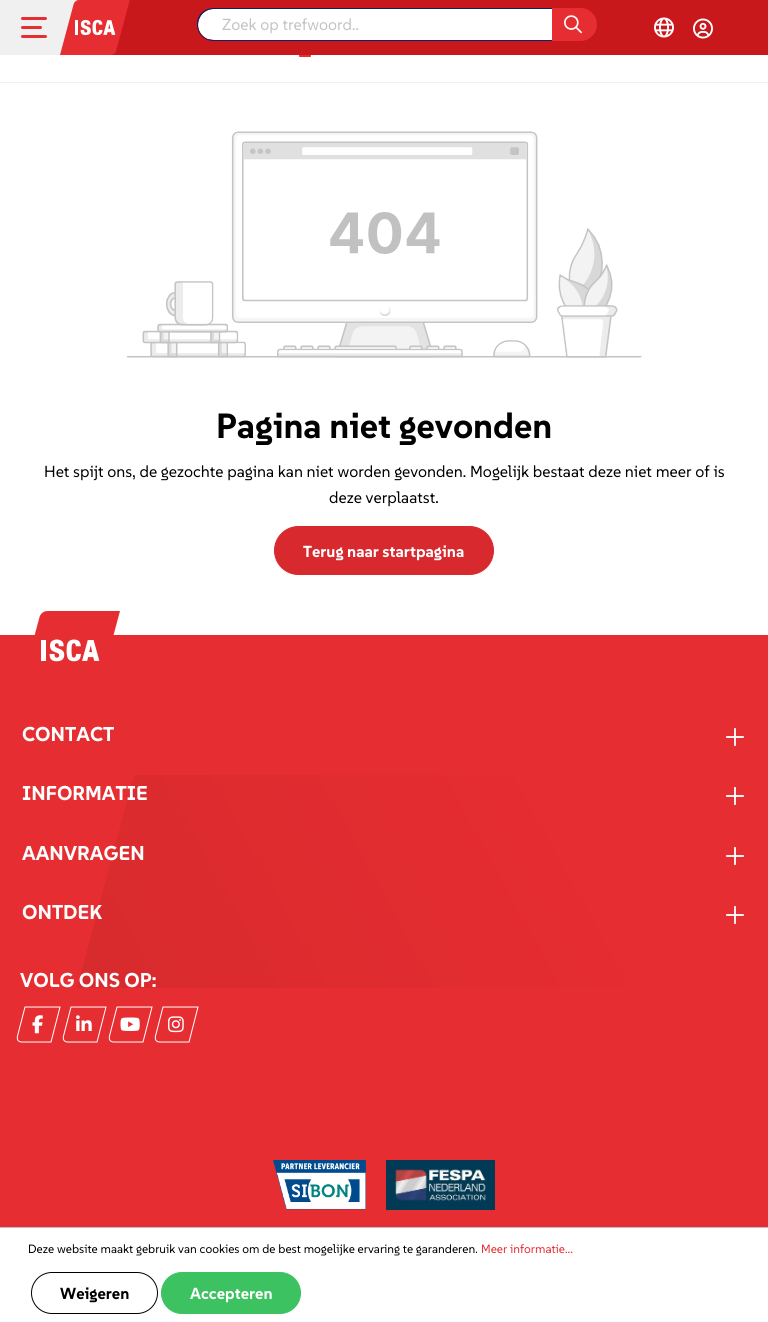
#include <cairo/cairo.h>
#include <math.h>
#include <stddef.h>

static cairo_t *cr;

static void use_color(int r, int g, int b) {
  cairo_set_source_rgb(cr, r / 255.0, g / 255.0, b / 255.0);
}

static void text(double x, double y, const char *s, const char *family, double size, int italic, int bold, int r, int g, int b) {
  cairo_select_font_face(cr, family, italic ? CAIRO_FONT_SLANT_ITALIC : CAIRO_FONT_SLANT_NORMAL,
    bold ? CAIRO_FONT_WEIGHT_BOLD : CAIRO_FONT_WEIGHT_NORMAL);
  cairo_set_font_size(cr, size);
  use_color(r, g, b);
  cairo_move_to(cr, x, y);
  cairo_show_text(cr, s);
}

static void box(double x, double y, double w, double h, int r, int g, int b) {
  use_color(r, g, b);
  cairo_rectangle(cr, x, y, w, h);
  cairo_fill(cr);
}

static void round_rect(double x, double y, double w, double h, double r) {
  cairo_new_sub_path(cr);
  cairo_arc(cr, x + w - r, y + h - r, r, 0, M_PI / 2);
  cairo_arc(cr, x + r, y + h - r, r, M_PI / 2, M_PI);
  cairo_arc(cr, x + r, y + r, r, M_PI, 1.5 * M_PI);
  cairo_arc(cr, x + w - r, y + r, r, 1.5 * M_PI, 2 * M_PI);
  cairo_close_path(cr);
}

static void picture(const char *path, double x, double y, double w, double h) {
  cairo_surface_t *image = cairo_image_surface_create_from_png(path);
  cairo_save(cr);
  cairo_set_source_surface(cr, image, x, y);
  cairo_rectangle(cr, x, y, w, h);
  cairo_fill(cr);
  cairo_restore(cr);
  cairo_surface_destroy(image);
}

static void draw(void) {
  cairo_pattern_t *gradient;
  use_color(255, 255, 255);
  cairo_paint(cr);
  box(110, 0, 658, 55, 200, 24, 28);
  box(0, 0, 79, 55, 240, 240, 240);
  use_color(230, 45, 49);
  round_rect(21, 17, 26, 3, 1.5);
  cairo_fill(cr);
  round_rect(21, 26, 21, 3, 1.5);
  cairo_fill(cr);
  round_rect(21, 35, 26, 3, 1.5);
  cairo_fill(cr);
  picture("img_01.png", 60, 0, 70, 55);
  use_color(255, 255, 255);
  cairo_new_path(cr);
  cairo_move_to(cr, 213.5, 9);
  cairo_line_to(cr, 553, 9);
  cairo_line_to(cr, 553, 40);
  cairo_line_to(cr, 213.5, 40);
  cairo_curve_to(cr, 205, 40, 198, 33, 198, 24.5);
  cairo_curve_to(cr, 198, 16, 205, 9, 213.5, 9);
  cairo_close_path(cr);
  cairo_fill(cr);
  use_color(9, 33, 101);
  cairo_set_fill_rule(cr, CAIRO_FILL_RULE_EVEN_ODD);
  cairo_new_path(cr);
  cairo_move_to(cr, 214, 8);
  cairo_line_to(cr, 553, 8);
  cairo_line_to(cr, 553, 41);
  cairo_line_to(cr, 214, 41);
  cairo_curve_to(cr, 204, 41, 197, 34, 197, 24);
  cairo_curve_to(cr, 197, 15, 204, 8, 214, 8);
  cairo_close_path(cr);
  cairo_move_to(cr, 214, 9);
  cairo_line_to(cr, 553, 9);
  cairo_line_to(cr, 553, 40);
  cairo_line_to(cr, 214, 40);
  cairo_line_to(cr, 207, 39);
  cairo_curve_to(cr, 192, 32, 197, 9, 214, 9);
  cairo_close_path(cr);
  cairo_fill(cr);
  use_color(230, 45, 49);
  cairo_new_path(cr);
  cairo_move_to(cr, 552, 8);
  cairo_line_to(cr, 580.5, 8);
  cairo_curve_to(cr, 589.5, 8, 597, 15.5, 597, 24.5);
  cairo_curve_to(cr, 597, 33.5, 589.5, 41, 580.5, 41);
  cairo_line_to(cr, 552, 41);
  cairo_close_path(cr);
  cairo_fill(cr);
  picture("img_02.png", 564, 15, 18, 19);
  picture("img_03.png", 654, 17, 20, 21);
  picture("img_04.png", 693, 18, 20, 21);
  box(0, 82, 768, 1, 240, 240, 240);
  picture("img_05.png", 299, 55, 12, 2);
  picture("img_06.png", 126, 131, 516, 227);
  use_color(216, 42, 46);
  round_rect(274.5, 526.5, 219, 48, 24);
  cairo_fill_preserve(cr);
  cairo_set_line_width(cr, 1);
  cairo_stroke(cr);
  box(0, 635, 768, 592, 230, 45, 49);
  picture("img_07.png", 34, 611, 86, 51);
  picture("img_08.png", 725, 727, 20, 20);
  gradient = cairo_pattern_create_linear(-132, 1191, 554, 813);
  cairo_pattern_add_color_stop_rgba(gradient, 0, 0.812, 0.161, 0.173, 1);
  cairo_pattern_add_color_stop_rgba(gradient, 1, 0.902, 0.176, 0.192, 1);
  cairo_set_source(cr, gradient);
  cairo_pattern_destroy(gradient);
  cairo_set_fill_rule(cr, CAIRO_FILL_RULE_WINDING);
  cairo_new_path(cr);
  cairo_move_to(cr, 768, 988);
  cairo_line_to(cr, 77, 988);
  cairo_line_to(cr, 134, 775);
  cairo_line_to(cr, 768, 775);
  cairo_close_path(cr);
  cairo_fill(cr);
  picture("img_08.png", 725, 786, 20, 20);
  picture("img_08.png", 725, 846, 20, 20);
  picture("img_08.png", 725, 905, 20, 20);
  cairo_new_path(cr);
  cairo_move_to(cr, 25, 1007);
  cairo_line_to(cr, 60, 1007);
  cairo_line_to(cr, 51, 1042);
  cairo_line_to(cr, 21.5, 1042);
  cairo_curve_to(cr, 18.5, 1042, 16.5, 1039.5, 17.5, 1036);
  cairo_close_path(cr);
  use_color(255, 255, 255);
  cairo_stroke(cr);
  picture("img_09.png", 32, 1015, 11, 19);
  cairo_new_path(cr);
  cairo_move_to(cr, 71, 1007);
  cairo_line_to(cr, 106, 1007);
  cairo_line_to(cr, 97, 1042);
  cairo_line_to(cr, 67.5, 1042);
  cairo_curve_to(cr, 64.5, 1042, 62.5, 1039.5, 63.5, 1036);
  cairo_close_path(cr);
  cairo_stroke(cr);
  picture("img_10.png", 76, 1015, 16, 16);
  cairo_new_path(cr);
  cairo_move_to(cr, 117, 1007);
  cairo_line_to(cr, 152, 1007);
  cairo_line_to(cr, 143, 1042);
  cairo_line_to(cr, 113.5, 1042);
  cairo_curve_to(cr, 110.5, 1042, 108.5, 1039.5, 109.5, 1036);
  cairo_close_path(cr);
  cairo_stroke(cr);
  picture("img_11.png", 120, 1017, 20, 14);
  cairo_new_path(cr);
  cairo_move_to(cr, 163, 1007);
  cairo_line_to(cr, 198, 1007);
  cairo_line_to(cr, 189, 1042);
  cairo_line_to(cr, 159.5, 1042);
  cairo_curve_to(cr, 156.5, 1042, 154.5, 1039.5, 155.5, 1036);
  cairo_close_path(cr);
  cairo_stroke(cr);
  picture("img_12.png", 168, 1016, 16, 17);
  picture("img_13.png", 273, 1160, 93, 50);
  picture("img_14.png", 386, 1160, 109, 50);
  box(0, 1227, 768, 1, 188, 193, 199);
  round_rect(31.5, 1272.5, 126, 41, 20.5);
  use_color(0, 0, 0);
  cairo_stroke(cr);
  use_color(60, 194, 97);
  round_rect(161.5, 1272.5, 139, 41, 20.5);
  cairo_fill_preserve(cr);
  cairo_stroke(cr);
  text(222, 30, "Zoek op trefwoord..", "SUSE", 16, 0, 0, 195, 195, 195);
  text(216, 438, "Pagina niet gevonden", "SUSE", 35, 0, 1, 0, 0, 0);
  text(44, 477, "Het spijt ons, de gezochte pagina kan niet worden gevonden. Mogelijk bestaat deze niet meer of is", "SUSE", 16, 0, 0, 0, 0, 0);
  text(329, 503, "deze verplaatst.", "SUSE", 16, 0, 0, 0, 0, 0);
  text(303, 557, "Terug naar startpagina", "SUSE", 16, 0, 1, 255, 255, 255);
  text(22, 741, "CONTACT", "SUSE", 20, 0, 1, 255, 255, 255);
  text(22, 800, "INFORMATIE", "SUSE", 20, 0, 1, 255, 255, 255);
  text(22, 860, "AANVRAGEN", "SUSE", 20, 0, 1, 255, 255, 255);
  text(22, 919, "ONTDEK", "SUSE", 20, 0, 1, 255, 255, 255);
  text(20, 987, "VOLG ONS OP:", "SUSE", 20, 0, 1, 255, 255, 255);
  text(28, 1253, "Deze website maakt gebruik van cookies om de best mogelijke ervaring te garanderen.", "SUSE", 12, 0, 0, 0, 0, 0);
  text(481, 1253, "Meer informatie...", "SUSE", 12, 0, 0, 230, 45, 49);
  text(60, 1299, "Weigeren", "SUSE", 16, 0, 1, 0, 0, 0);
  text(190, 1299, "Accepteren", "SUSE", 16, 0, 1, 255, 255, 255);
}

int main(void) {
  cairo_surface_t *surface = cairo_image_surface_create(CAIRO_FORMAT_RGB24, 768, 1322);
  cr = cairo_create(surface);
  cairo_font_options_t *options = cairo_font_options_create();
  cairo_font_options_set_hint_metrics(options, CAIRO_HINT_METRICS_OFF);
  cairo_font_options_set_hint_style(options, CAIRO_HINT_STYLE_NONE);
  cairo_set_font_options(cr, options);
  cairo_set_miter_limit(cr, 4);
  draw();
  cairo_surface_write_to_png(surface, "out.png");
  cairo_font_options_destroy(options);
  cairo_destroy(cr);
  cairo_surface_destroy(surface);
  return 0;
}
